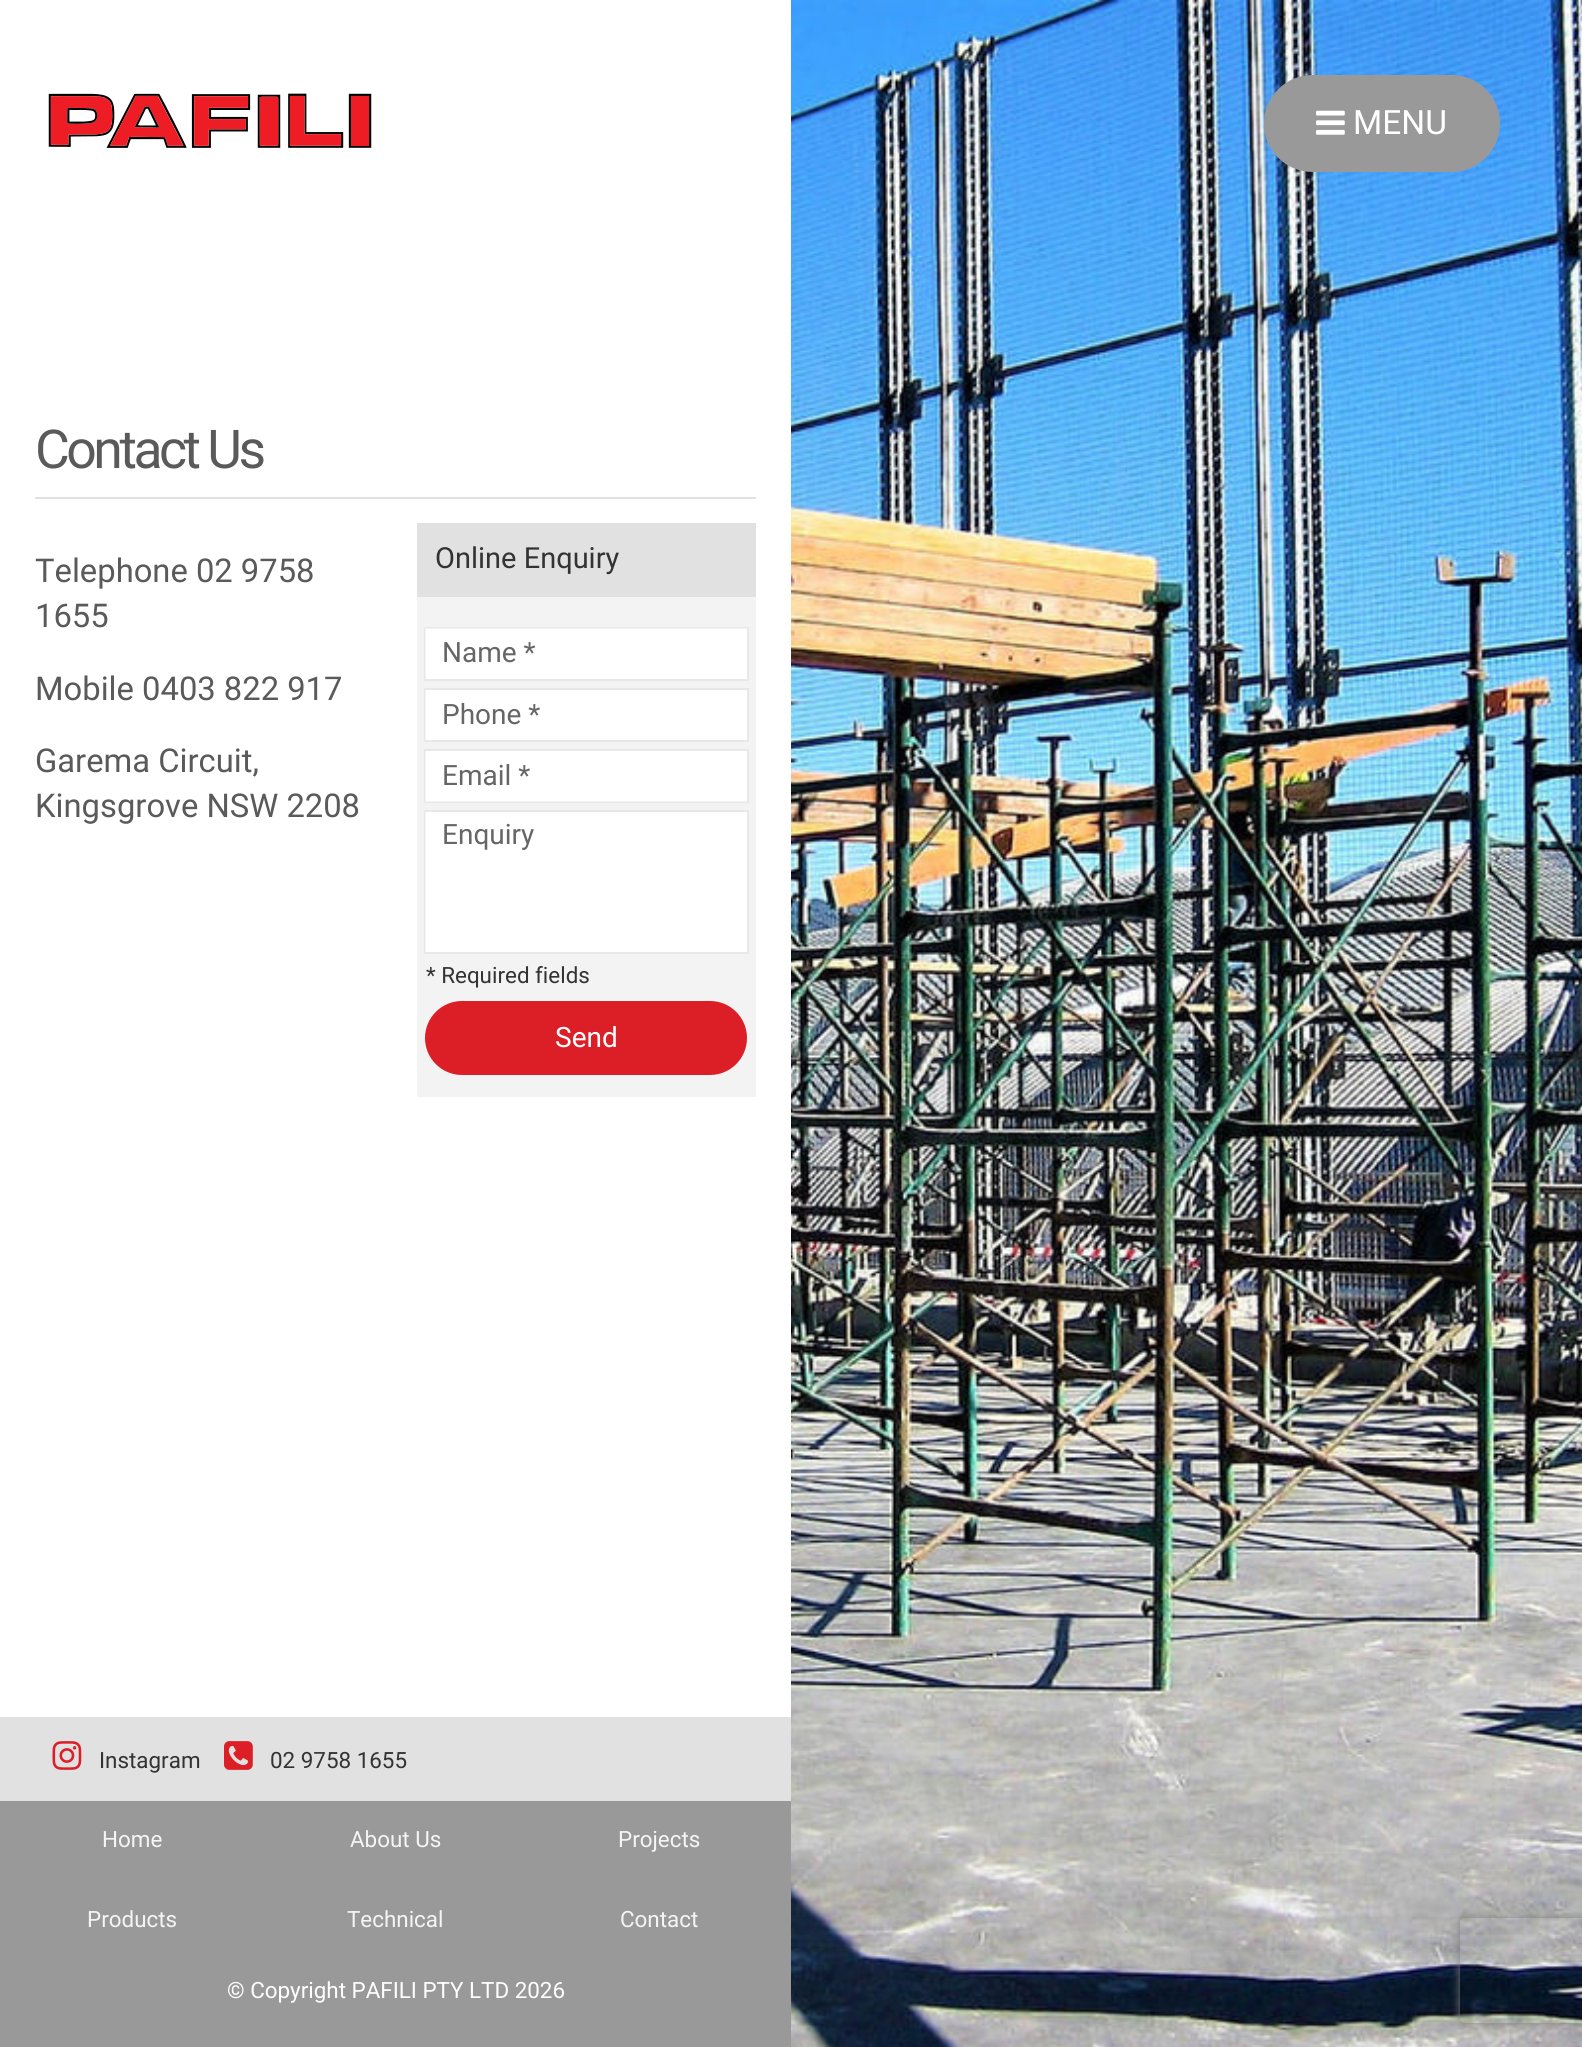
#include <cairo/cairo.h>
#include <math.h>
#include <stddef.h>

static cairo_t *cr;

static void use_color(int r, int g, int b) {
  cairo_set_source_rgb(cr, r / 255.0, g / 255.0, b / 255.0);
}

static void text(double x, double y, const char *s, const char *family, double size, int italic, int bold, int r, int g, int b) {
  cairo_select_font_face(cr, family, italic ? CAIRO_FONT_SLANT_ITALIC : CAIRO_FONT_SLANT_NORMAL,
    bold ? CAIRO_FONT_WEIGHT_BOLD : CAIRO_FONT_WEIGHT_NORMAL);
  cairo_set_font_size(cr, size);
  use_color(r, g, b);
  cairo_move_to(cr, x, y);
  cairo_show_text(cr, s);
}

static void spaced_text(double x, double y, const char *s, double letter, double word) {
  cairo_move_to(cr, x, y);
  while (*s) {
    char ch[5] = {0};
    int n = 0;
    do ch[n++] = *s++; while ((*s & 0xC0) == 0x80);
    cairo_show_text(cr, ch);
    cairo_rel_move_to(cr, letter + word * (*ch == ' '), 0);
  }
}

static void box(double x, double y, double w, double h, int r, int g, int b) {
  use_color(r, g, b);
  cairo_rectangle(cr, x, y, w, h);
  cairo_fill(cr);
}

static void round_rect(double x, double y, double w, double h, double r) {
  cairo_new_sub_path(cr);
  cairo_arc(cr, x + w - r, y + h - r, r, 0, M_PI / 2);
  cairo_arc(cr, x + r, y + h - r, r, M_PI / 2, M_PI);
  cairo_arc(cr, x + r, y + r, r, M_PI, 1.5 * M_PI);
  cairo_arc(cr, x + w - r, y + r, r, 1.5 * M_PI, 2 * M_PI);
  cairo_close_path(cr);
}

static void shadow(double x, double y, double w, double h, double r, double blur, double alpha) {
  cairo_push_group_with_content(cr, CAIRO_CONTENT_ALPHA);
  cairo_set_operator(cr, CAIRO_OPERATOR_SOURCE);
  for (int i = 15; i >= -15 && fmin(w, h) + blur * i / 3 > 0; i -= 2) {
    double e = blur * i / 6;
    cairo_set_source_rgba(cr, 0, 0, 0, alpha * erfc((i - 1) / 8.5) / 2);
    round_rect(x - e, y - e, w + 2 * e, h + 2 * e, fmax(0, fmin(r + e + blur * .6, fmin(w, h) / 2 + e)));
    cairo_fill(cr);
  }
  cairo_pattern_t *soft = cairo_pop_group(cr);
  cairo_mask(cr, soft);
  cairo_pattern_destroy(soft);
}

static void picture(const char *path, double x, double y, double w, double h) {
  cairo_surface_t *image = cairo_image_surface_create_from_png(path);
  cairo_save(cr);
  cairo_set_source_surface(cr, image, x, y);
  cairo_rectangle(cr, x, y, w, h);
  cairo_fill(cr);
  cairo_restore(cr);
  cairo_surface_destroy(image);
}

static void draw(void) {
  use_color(255, 255, 255);
  cairo_paint(cr);
  picture("img_01.png", 791, 0, 791, 2047);
  use_color(153, 153, 153);
  round_rect(1264, 75, 236, 97, 48.5);
  cairo_fill(cr);
  picture("img_02.png", 1316, 110, 29, 25);
  picture("img_03.png", 48, 93, 324, 55);
  box(35, 497, 721, 2, 225, 225, 225);
  box(417, 597, 339, 500, 243, 243, 243);
  box(417, 523, 339, 74, 225, 225, 225);
  box(425, 628, 322, 51, 255, 255, 255);
  cairo_rectangle(cr, 425, 628, 323, 52);
  cairo_set_source_rgba(cr, 0, 0, 0, 0.05);
  cairo_stroke(cr);
  box(425, 690, 322, 50, 255, 255, 255);
  cairo_rectangle(cr, 425, 689, 323, 52);
  cairo_set_source_rgba(cr, 0, 0, 0, 0.05);
  cairo_stroke(cr);
  box(425, 751, 322, 51, 255, 255, 255);
  cairo_rectangle(cr, 425, 750, 323, 52);
  cairo_set_source_rgba(cr, 0, 0, 0, 0.05);
  cairo_stroke(cr);
  box(425, 812, 322, 140, 255, 255, 255);
  cairo_rectangle(cr, 425, 811, 323, 142);
  cairo_set_source_rgba(cr, 0, 0, 0, 0.05);
  cairo_stroke(cr);
  cairo_save(cr);
  cairo_set_fill_rule(cr, CAIRO_FILL_RULE_EVEN_ODD);
  cairo_new_path(cr);
  cairo_move_to(cr, 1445, 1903);
  cairo_line_to(cr, 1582, 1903);
  cairo_line_to(cr, 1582, 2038);
  cairo_line_to(cr, 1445, 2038);
  cairo_close_path(cr);
  cairo_move_to(cr, 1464, 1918);
  cairo_line_to(cr, 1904, 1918);
  cairo_curve_to(cr, 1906, 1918, 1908, 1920, 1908, 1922);
  cairo_line_to(cr, 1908, 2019);
  cairo_curve_to(cr, 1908, 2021, 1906, 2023, 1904, 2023);
  cairo_line_to(cr, 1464, 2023);
  cairo_curve_to(cr, 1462, 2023, 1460, 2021, 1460, 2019);
  cairo_line_to(cr, 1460, 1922);
  cairo_curve_to(cr, 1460, 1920, 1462, 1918, 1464, 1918);
  cairo_close_path(cr);
  cairo_clip(cr);
  use_color(128, 128, 128);
  shadow(1460, 1918, 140, 105, 4, 4.5, 1);
  cairo_restore(cr);
  use_color(220, 31, 39);
  round_rect(425, 1001, 322, 74, 37);
  cairo_fill(cr);
  box(0, 1801, 791, 246, 153, 153, 153);
  box(0, 1717, 791, 84, 225, 225, 225);
  picture("img_04.png", 52, 1741, 30, 29);
  picture("img_05.png", 224, 1741, 29, 29);
  text(1353, 134, "MENU", "Roboto", 33.5, 0, 0, 255, 255, 255);
  cairo_set_font_size(cr, 53.5);
  use_color(90, 90, 90);
  spaced_text(35, 468, "Contact Us", -3.5, 0);
  text(35, 582, "Telephone 02 9758", "Roboto", 32.75, 0, 0, 90, 90, 90);
  text(35, 627, "1655", "Roboto", 32.75, 0, 0, 90, 90, 90);
  text(35, 700, "Mobile 0403 822 917", "Roboto", 32.75, 0, 0, 90, 90, 90);
  text(35, 772, "Garema Circuit,", "Roboto", 32.75, 0, 0, 90, 90, 90);
  text(35, 817, "Kingsgrove NSW 2208", "Roboto", 32.75, 0, 0, 90, 90, 90);
  text(435, 568, "Online Enquiry", "Roboto", 29, 0, 0, 51, 51, 51);
  text(442, 662, "Name *", "Roboto", 28, 0, 0, 102, 102, 102);
  text(442, 724, "Phone *", "Roboto", 28, 0, 0, 102, 102, 102);
  text(442, 785, "Email *", "Roboto", 28, 0, 0, 102, 102, 102);
  text(442, 844, "Enquiry", "Roboto", 28, 0, 0, 102, 102, 102);
  text(426, 983, "* Required fields", "Roboto", 22.4, 0, 0, 51, 51, 51);
  text(555, 1047, "Send", "Roboto", 28, 0, 0, 255, 255, 255);
  text(99, 1768, "Instagram", "Roboto", 22.4, 0, 0, 51, 51, 51);
  text(270, 1768, "02 9758 1655", "Roboto", 22.4, 0, 0, 51, 51, 51);
  text(102, 1847, "Home", "Roboto", 22.4, 0, 0, 245, 245, 245);
  text(350, 1847, "About Us", "Roboto", 22.4, 0, 0, 245, 245, 245);
  text(618, 1847, "Projects", "Roboto", 22.4, 0, 0, 245, 245, 245);
  text(87, 1927, "Products", "Roboto", 22.4, 0, 0, 245, 245, 245);
  text(347, 1927, "Technical", "Roboto", 22.4, 0, 0, 245, 245, 245);
  text(620, 1927, "Contact", "Roboto", 22.4, 0, 0, 245, 245, 245);
  text(227, 1998, "© Copyright PAFILI PTY LTD 2026", "Roboto", 22.4, 0, 0, 255, 255, 255);
}

int main(void) {
  cairo_surface_t *surface = cairo_image_surface_create(CAIRO_FORMAT_RGB24, 1582, 2047);
  cr = cairo_create(surface);
  cairo_font_options_t *options = cairo_font_options_create();
  cairo_font_options_set_hint_metrics(options, CAIRO_HINT_METRICS_OFF);
  cairo_font_options_set_hint_style(options, CAIRO_HINT_STYLE_NONE);
  cairo_set_font_options(cr, options);
  cairo_set_miter_limit(cr, 4);
  draw();
  cairo_surface_write_to_png(surface, "out.png");
  cairo_font_options_destroy(options);
  cairo_destroy(cr);
  cairo_surface_destroy(surface);
  return 0;
}
